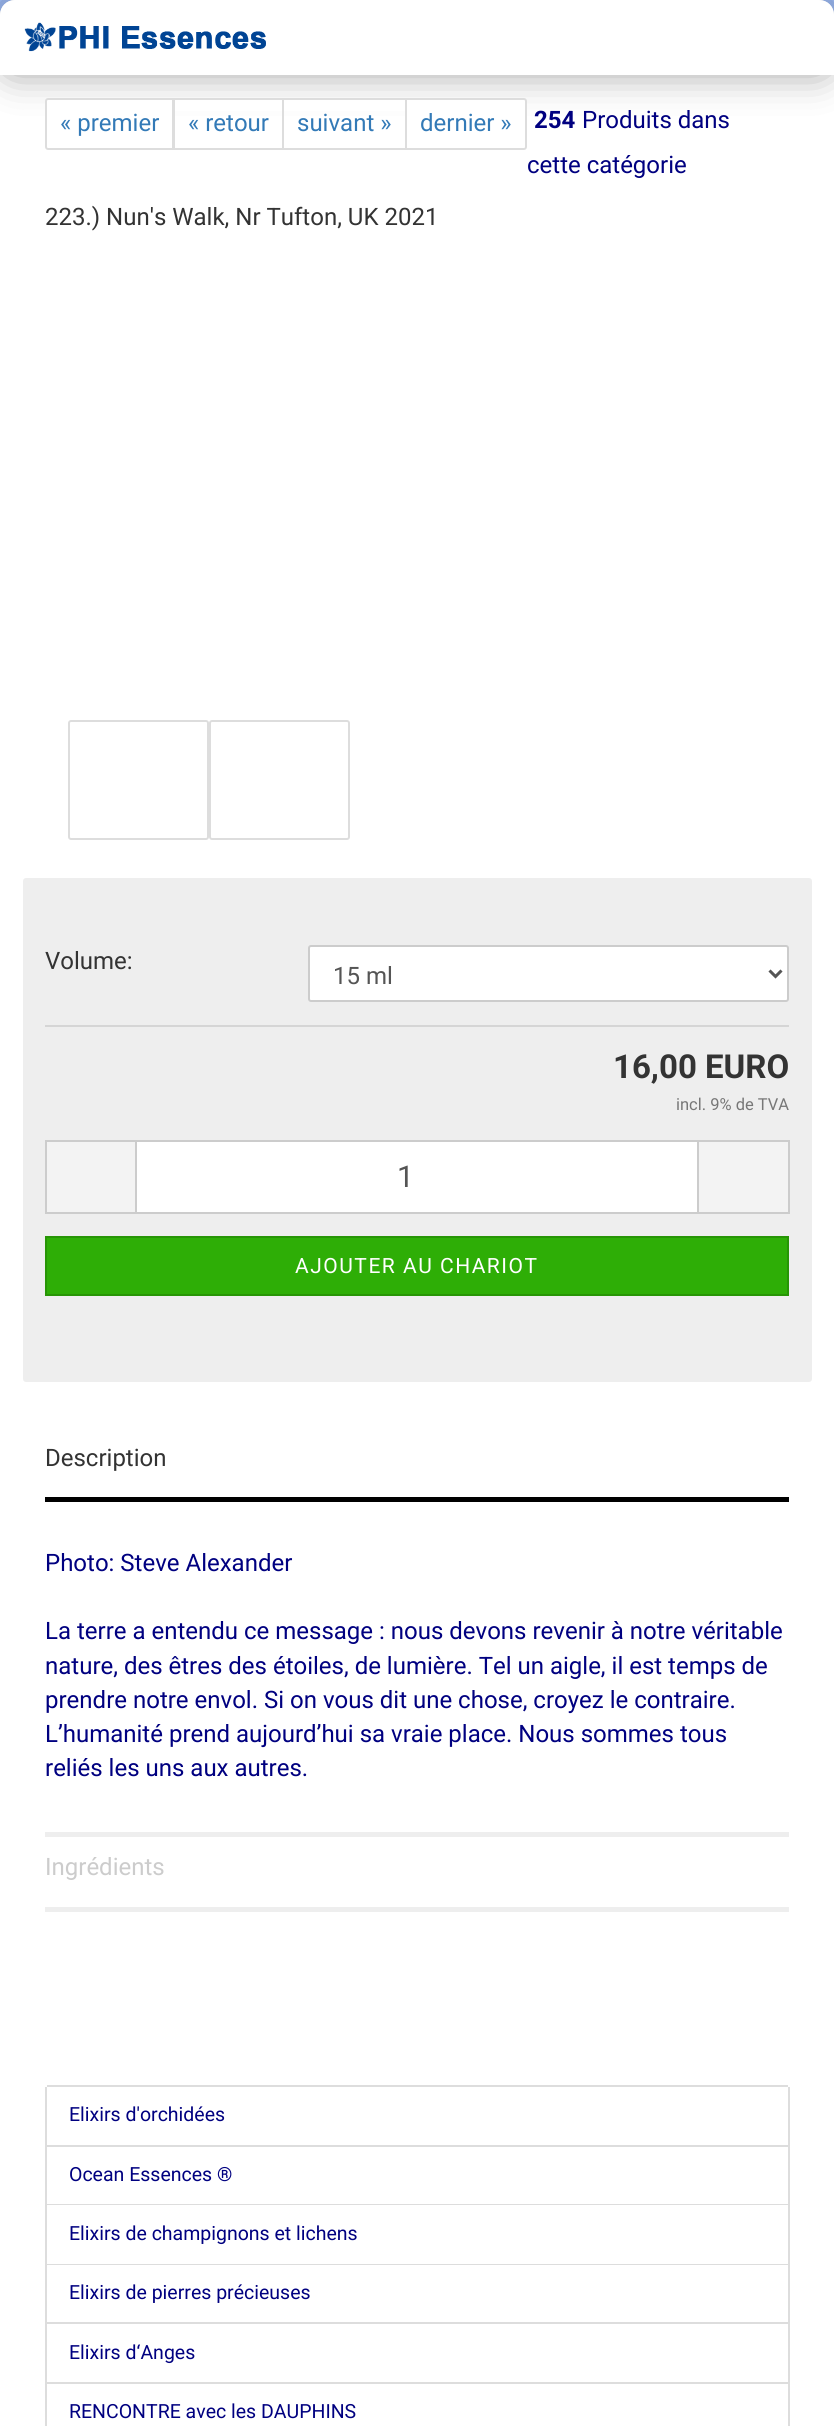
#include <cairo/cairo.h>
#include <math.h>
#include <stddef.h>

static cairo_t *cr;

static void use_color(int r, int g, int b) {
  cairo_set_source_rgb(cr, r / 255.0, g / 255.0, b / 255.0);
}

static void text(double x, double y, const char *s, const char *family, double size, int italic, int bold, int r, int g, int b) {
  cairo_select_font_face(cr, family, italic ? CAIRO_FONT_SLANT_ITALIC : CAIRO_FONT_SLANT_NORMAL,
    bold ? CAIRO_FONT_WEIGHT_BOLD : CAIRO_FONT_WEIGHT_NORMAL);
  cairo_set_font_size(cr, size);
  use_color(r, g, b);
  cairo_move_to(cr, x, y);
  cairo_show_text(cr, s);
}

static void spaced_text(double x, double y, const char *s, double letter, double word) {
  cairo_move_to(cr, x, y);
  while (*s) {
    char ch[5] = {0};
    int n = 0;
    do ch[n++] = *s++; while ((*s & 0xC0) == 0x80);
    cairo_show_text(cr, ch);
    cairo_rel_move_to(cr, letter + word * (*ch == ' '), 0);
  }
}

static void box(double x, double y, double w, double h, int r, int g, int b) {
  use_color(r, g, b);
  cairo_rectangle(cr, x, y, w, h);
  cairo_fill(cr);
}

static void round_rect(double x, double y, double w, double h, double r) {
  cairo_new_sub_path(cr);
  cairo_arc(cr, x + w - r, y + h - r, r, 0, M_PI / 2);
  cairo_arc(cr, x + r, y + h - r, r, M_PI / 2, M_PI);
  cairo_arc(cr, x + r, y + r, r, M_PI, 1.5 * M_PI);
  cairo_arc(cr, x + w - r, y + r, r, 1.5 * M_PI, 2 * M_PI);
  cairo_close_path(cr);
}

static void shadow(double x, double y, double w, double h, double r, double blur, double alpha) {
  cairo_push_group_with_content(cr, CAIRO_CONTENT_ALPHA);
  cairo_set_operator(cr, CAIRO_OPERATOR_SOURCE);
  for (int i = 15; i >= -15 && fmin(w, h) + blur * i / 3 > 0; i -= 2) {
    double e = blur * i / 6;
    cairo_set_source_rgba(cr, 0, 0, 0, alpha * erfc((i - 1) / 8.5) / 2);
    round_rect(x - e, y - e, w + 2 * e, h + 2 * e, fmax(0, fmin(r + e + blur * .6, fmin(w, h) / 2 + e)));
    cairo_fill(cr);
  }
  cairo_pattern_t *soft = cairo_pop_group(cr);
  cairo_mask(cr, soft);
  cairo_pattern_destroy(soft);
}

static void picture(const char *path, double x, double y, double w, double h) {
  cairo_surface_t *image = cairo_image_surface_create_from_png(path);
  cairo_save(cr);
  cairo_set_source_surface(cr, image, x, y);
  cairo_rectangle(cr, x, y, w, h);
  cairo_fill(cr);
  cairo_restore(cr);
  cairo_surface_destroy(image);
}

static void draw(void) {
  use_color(160, 190, 248);
  cairo_paint(cr);
  use_color(255, 255, 255);
  round_rect(0, 0, 834, 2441, 15);
  cairo_fill(cr);
  use_color(0, 0, 0);
  shadow(0, 0, 834, 75, 15, 19, 0.35);
  use_color(255, 255, 255);
  cairo_new_path(cr);
  cairo_move_to(cr, 15, 0);
  cairo_line_to(cr, 819, 0);
  cairo_curve_to(cr, 827.5, 0, 834, 6.5, 834, 15);
  cairo_line_to(cr, 834, 75);
  cairo_line_to(cr, 0, 75);
  cairo_line_to(cr, 0, 15);
  cairo_curve_to(cr, 0, 6.5, 6.5, 0, 15, 0);
  cairo_close_path(cr);
  cairo_fill(cr);
  picture("img_01.png", 24, 22, 242, 30);
  cairo_new_path(cr);
  cairo_move_to(cr, 48, 99);
  cairo_line_to(cr, 173, 99);
  cairo_line_to(cr, 173, 149);
  cairo_line_to(cr, 48, 149);
  cairo_curve_to(cr, 47, 149, 46, 148, 46, 147);
  cairo_line_to(cr, 46, 101);
  cairo_curve_to(cr, 46, 100, 47, 99, 48, 99);
  cairo_close_path(cr);
  cairo_fill_preserve(cr);
  use_color(221, 221, 221);
  cairo_stroke(cr);
  box(175, 100, 107, 11, 255, 255, 255);
  cairo_rectangle(cr, 174, 99, 109, 50);
  use_color(221, 221, 221);
  cairo_stroke(cr);
  box(284, 100, 121, 11, 255, 255, 255);
  cairo_rectangle(cr, 283, 99, 123, 50);
  use_color(221, 221, 221);
  cairo_stroke(cr);
  use_color(255, 255, 255);
  cairo_new_path(cr);
  cairo_move_to(cr, 406, 99);
  cairo_line_to(cr, 524, 99);
  cairo_curve_to(cr, 525, 99, 526, 100, 526, 101);
  cairo_line_to(cr, 526, 147);
  cairo_curve_to(cr, 526, 148, 525, 149, 524, 149);
  cairo_line_to(cr, 406, 149);
  cairo_close_path(cr);
  cairo_fill_preserve(cr);
  use_color(221, 221, 221);
  cairo_stroke(cr);
  round_rect(69, 721, 139, 118, 2);
  cairo_stroke(cr);
  round_rect(210, 721, 139, 118, 2);
  cairo_stroke(cr);
  use_color(238, 238, 238);
  round_rect(23, 878, 789, 504, 3);
  cairo_fill(cr);
  box(45, 1025, 744, 2, 213, 213, 213);
  use_color(255, 255, 255);
  round_rect(309, 946, 479, 55, 2);
  cairo_fill_preserve(cr);
  use_color(204, 204, 204);
  cairo_stroke(cr);
  cairo_new_path(cr);
  cairo_move_to(cr, 769.5, 970.5);
  cairo_line_to(cr, 775.5, 976.5);
  cairo_line_to(cr, 781.5, 970.5);
  use_color(85, 85, 85);
  cairo_set_line_width(cr, 3);
  cairo_stroke(cr);
  box(47, 1142, 88, 70, 243, 243, 243);
  box(45, 1140, 90, 2, 204, 204, 204);
  box(45, 1212, 90, 2, 204, 204, 204);
  box(45, 1140, 2, 74, 204, 204, 204);
  use_color(255, 255, 255);
  cairo_rectangle(cr, 136, 1141, 562, 72);
  cairo_fill_preserve(cr);
  use_color(204, 204, 204);
  cairo_set_line_width(cr, 2);
  cairo_stroke(cr);
  box(699, 1142, 89, 70, 243, 243, 243);
  box(699, 1140, 90, 2, 204, 204, 204);
  box(788, 1140, 2, 74, 204, 204, 204);
  box(699, 1212, 90, 2, 204, 204, 204);
  use_color(46, 174, 6);
  cairo_rectangle(cr, 46, 1237, 742, 58);
  cairo_fill_preserve(cr);
  use_color(39, 149, 5);
  cairo_stroke(cr);
  box(45, 1497, 744, 5, 0, 0, 0);
  box(45, 1832, 744, 5, 238, 238, 238);
  box(45, 1907, 744, 5, 238, 238, 238);
  box(47, 2085, 741, 2, 221, 221, 221);
  box(788, 2087, 2, 339, 221, 221, 221);
  box(45, 2087, 2, 339, 221, 221, 221);
  box(47, 2145, 741, 2, 221, 221, 221);
  box(47, 2204, 741, 1, 221, 221, 221);
  box(47, 2264, 741, 1, 221, 221, 221);
  box(47, 2322, 741, 2, 221, 221, 221);
  box(47, 2382, 741, 2, 221, 221, 221);
  text(60, 131, "« premier", "Roboto", 24, 0, 0, 51, 122, 183);
  text(188, 131, "« retour", "Roboto", 24, 0, 0, 51, 122, 183);
  text(297, 131, "suivant »", "Roboto", 24, 0, 0, 51, 122, 183);
  text(420, 131, "dernier »", "Roboto", 24, 0, 0, 51, 122, 183);
  text(534, 128, "254", "Roboto", 24, 0, 1, 0, 0, 128);
  text(582, 128, "Produits dans", "Roboto", 24, 0, 0, 0, 0, 128);
  text(527, 173, "cette catégorie", "Roboto", 24, 0, 0, 0, 0, 128);
  text(45, 225, "223.) Nun's Walk, Nr Tufton, UK 2021", "Roboto", 24, 0, 0, 51, 51, 51);
  text(45, 969, "Volume:", "Roboto", 24, 0, 0, 51, 51, 51);
  text(333, 984, "15 ml", "Roboto", 24, 0, 0, 85, 85, 85);
  text(613, 1078, "16,00 EURO", "Roboto", 33, 0, 1, 51, 51, 51);
  text(676, 1110, "incl. 9% de TVA", "Roboto", 16.5, 0, 0, 119, 119, 119);
  text(397, 1187, "1", "Roboto", 30, 0, 0, 85, 85, 85);
  cairo_set_font_size(cr, 21);
  use_color(255, 255, 255);
  spaced_text(295, 1273, "AJOUTER AU CHARIOT", 1.5, 0);
  text(45, 1466, "Description", "Roboto", 24, 0, 0, 51, 51, 51);
  text(45, 1571, "Photo: Steve Alexander", "Roboto", 24, 0, 0, 0, 0, 128);
  text(45, 1639, "La terre a entendu ce message : nous devons revenir à notre véritable", "Roboto", 24, 0, 0, 0, 0, 128);
  text(45, 1674, "nature, des êtres des étoiles, de lumière. Tel un aigle, il est temps de", "Roboto", 24, 0, 0, 0, 0, 128);
  text(45, 1708, "prendre notre envol. Si on vous dit une chose, croyez le contraire.", "Roboto", 24, 0, 0, 0, 0, 128);
  text(45, 1742, "L’humanité prend aujourd’hui sa vraie place. Nous sommes tous", "Roboto", 24, 0, 0, 0, 0, 128);
  text(45, 1776, "reliés les uns aux autres.", "Roboto", 24, 0, 0, 0, 0, 128);
  text(45, 1875, "Ingrédients", "Roboto", 24, 0, 0, 204, 204, 204);
  text(69, 2121, "Elixirs d'orchidées", "Roboto", 19.5, 0, 0, 0, 0, 128);
  text(69, 2181, "Ocean Essences ®", "Roboto", 19.5, 0, 0, 0, 0, 128);
  text(69, 2240, "Elixirs de champignons et lichens", "Roboto", 19.5, 0, 0, 0, 0, 128);
  text(69, 2299, "Elixirs de pierres précieuses", "Roboto", 19.5, 0, 0, 0, 0, 128);
  text(69, 2359, "Elixirs d‘Anges", "Roboto", 19.5, 0, 0, 0, 0, 128);
  text(69, 2418, "RENCONTRE avec les DAUPHINS", "Roboto", 19.5, 0, 0, 0, 0, 128);
}

int main(void) {
  cairo_surface_t *surface = cairo_image_surface_create(CAIRO_FORMAT_RGB24, 834, 2426);
  cr = cairo_create(surface);
  cairo_font_options_t *options = cairo_font_options_create();
  cairo_font_options_set_hint_metrics(options, CAIRO_HINT_METRICS_OFF);
  cairo_font_options_set_hint_style(options, CAIRO_HINT_STYLE_NONE);
  cairo_set_font_options(cr, options);
  cairo_set_miter_limit(cr, 4);
  draw();
  cairo_surface_write_to_png(surface, "out.png");
  cairo_font_options_destroy(options);
  cairo_destroy(cr);
  cairo_surface_destroy(surface);
  return 0;
}
